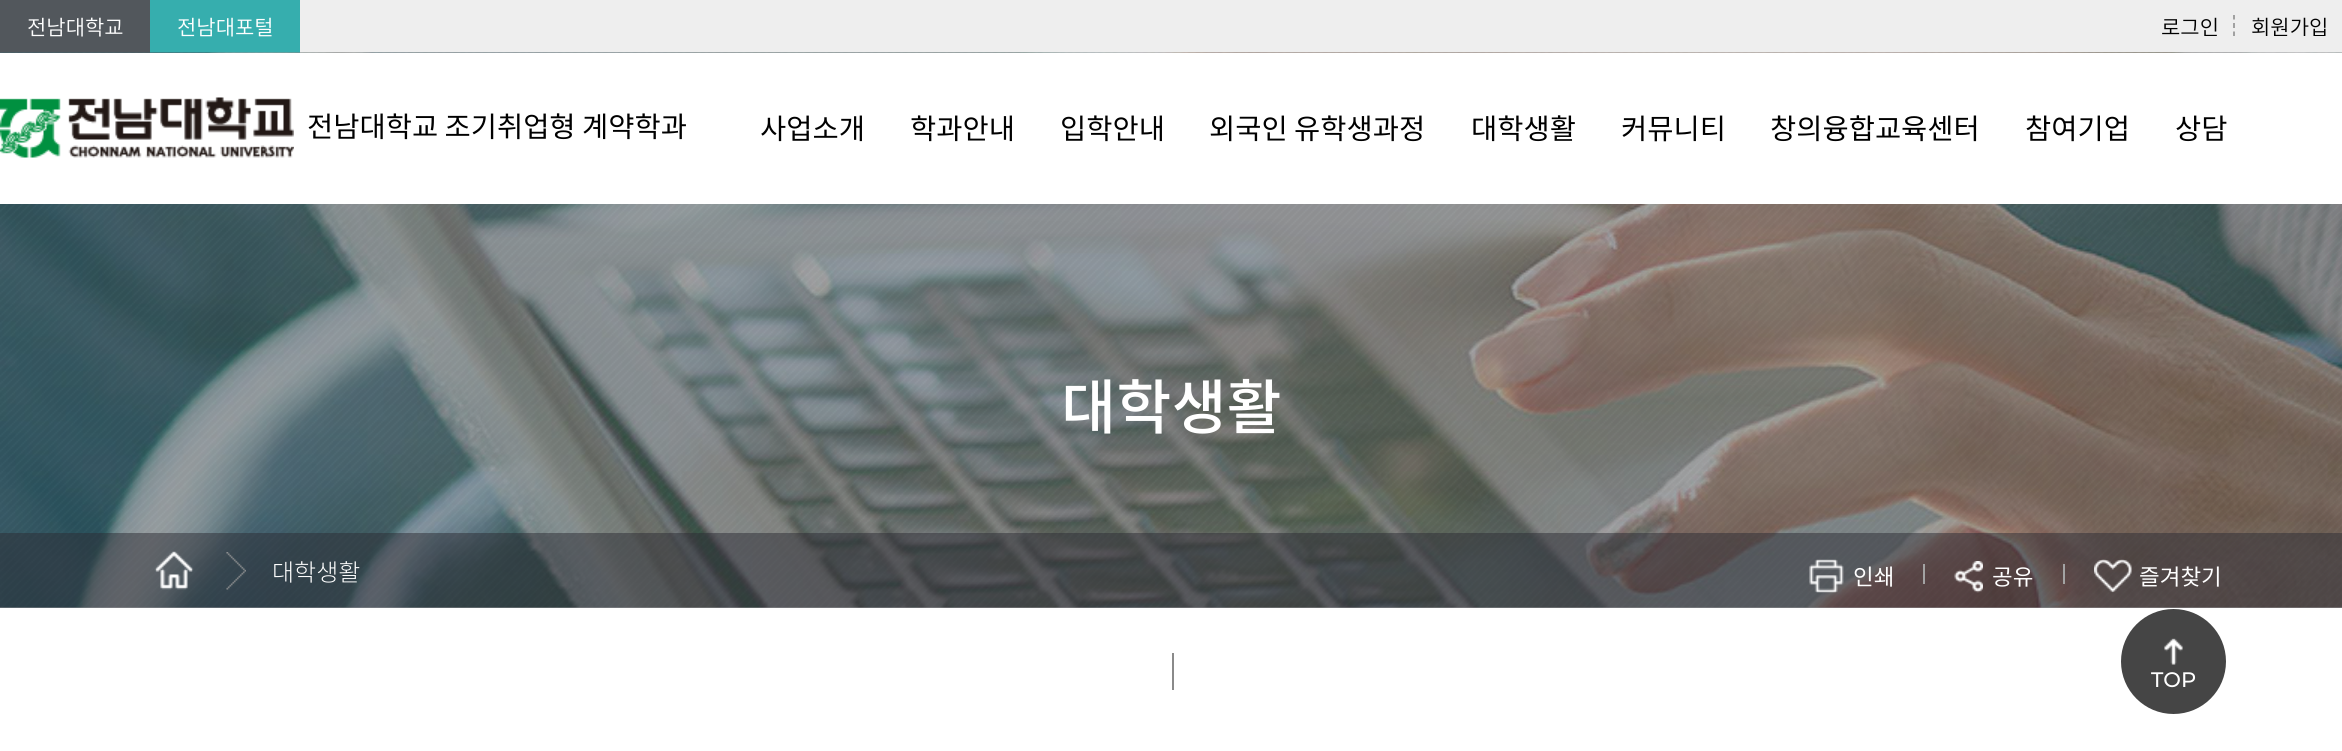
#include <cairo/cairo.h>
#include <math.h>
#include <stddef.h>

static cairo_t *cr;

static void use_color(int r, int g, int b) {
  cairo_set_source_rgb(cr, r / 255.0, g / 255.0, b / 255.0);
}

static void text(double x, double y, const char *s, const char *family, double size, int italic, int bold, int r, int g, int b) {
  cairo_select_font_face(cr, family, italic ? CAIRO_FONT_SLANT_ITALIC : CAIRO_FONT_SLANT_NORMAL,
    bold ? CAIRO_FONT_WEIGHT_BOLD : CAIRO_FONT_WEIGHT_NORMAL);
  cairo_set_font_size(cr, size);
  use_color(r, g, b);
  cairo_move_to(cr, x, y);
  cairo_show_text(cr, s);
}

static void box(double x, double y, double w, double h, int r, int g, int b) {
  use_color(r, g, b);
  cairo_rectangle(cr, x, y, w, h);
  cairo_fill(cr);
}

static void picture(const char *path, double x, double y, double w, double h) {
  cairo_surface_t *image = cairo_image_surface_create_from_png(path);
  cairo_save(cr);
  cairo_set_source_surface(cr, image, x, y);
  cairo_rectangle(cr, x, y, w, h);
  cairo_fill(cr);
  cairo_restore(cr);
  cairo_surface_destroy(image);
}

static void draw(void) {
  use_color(255, 255, 255);
  cairo_paint(cr);
  box(300, 0, 2042, 53, 238, 238, 238);
  box(0, 0, 150, 53, 82, 87, 92);
  box(150, 0, 150, 53, 54, 174, 174);
  cairo_new_path(cr);
  cairo_move_to(cr, 2234, 15);
  cairo_line_to(cr, 2234, 19.5);
  cairo_move_to(cr, 2234, 23);
  cairo_line_to(cr, 2234, 28);
  cairo_move_to(cr, 2234, 31.5);
  cairo_line_to(cr, 2234, 36);
  use_color(136, 136, 136);
  cairo_set_line_width(cr, 1.5);
  cairo_stroke(cr);
  picture("img_02.png", 0, 52, 2342, 556);
  picture("img_03.png", 0, 52, 2342, 556);
  box(0, 53, 2342, 151, 255, 255, 255);
  picture("img_01.png", 0, 97, 294, 61);
  cairo_set_source_rgba(cr, 0.173, 0.173, 0.208, 0.5);
  cairo_rectangle(cr, 0, 533, 2342, 75);
  cairo_fill(cr);
  picture("img_04.png", 154, 551, 40, 39);
  picture("img_05.png", 226, 552, 20, 38);
  picture("img_06.png", 1809, 559, 35, 34);
  box(1923, 564, 2, 20, 163, 163, 163);
  picture("img_07.png", 1954, 561, 29, 32);
  box(2063, 564, 2, 20, 163, 163, 163);
  picture("img_08.png", 2094, 559, 38, 34);
  box(1172, 653, 2, 37, 138, 138, 138);
  use_color(69, 69, 69);
  cairo_arc(cr, 2173.5, 661.5, 52.5, 0, 2 * M_PI);
  cairo_fill(cr);
  picture("img_09.png", 2164, 638, 19, 27);
  text(27, 35, "전남대학교", "Noto Sans KR Light", 21, 0, 0, 255, 255, 255);
  text(177, 35, "전남대포털", "Noto Sans KR Light", 21, 0, 0, 255, 255, 255);
  cairo_save(cr);
  cairo_rectangle(cr, 2147, 15, 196, 21);
  cairo_clip(cr);
  text(2161, 35, "로그인", "Noto Sans KR Light", 21, 0, 0, 0, 0, 0);
  text(2251, 35, "회원가입", "Noto Sans KR Light", 21, 0, 0, 0, 0, 0);
  cairo_restore(cr);
  text(307, 137, "전남대학교 조기취업형 계약학과", "Noto Sans KR", 28.5, 0, 0, 0, 0, 0);
  text(760, 139, "사업소개", "Noto Sans KR", 28.5, 0, 0, 0, 0, 0);
  text(910, 139, "학과안내", "Noto Sans KR", 28.5, 0, 0, 0, 0, 0);
  text(1060, 139, "입학안내", "Noto Sans KR", 28.5, 0, 0, 0, 0, 0);
  text(1209, 139, "외국인 유학생과정", "Noto Sans KR", 28.5, 0, 0, 0, 0, 0);
  text(1471, 139, "대학생활", "Noto Sans KR", 28.5, 0, 0, 0, 0, 0);
  text(1621, 139, "커뮤니티", "Noto Sans KR", 28.5, 0, 0, 0, 0, 0);
  text(1770, 139, "창의융합교육센터", "Noto Sans KR", 28.5, 0, 0, 0, 0, 0);
  text(2025, 139, "참여기업", "Noto Sans KR", 28.5, 0, 0, 0, 0, 0);
  text(2175, 139, "상담", "Noto Sans KR", 28.5, 0, 0, 0, 0, 0);
  text(1061, 429, "대학생활", "Noto Sans KR Medium", 60, 0, 0, 255, 255, 255);
  text(272, 581, "대학생활", "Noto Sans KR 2 Light", 24, 0, 0, 255, 255, 255);
  text(1853, 585, "인쇄", "Noto Sans KR", 22.5, 0, 0, 255, 255, 255);
  text(1992, 585, "공유", "Noto Sans KR", 22.5, 0, 0, 255, 255, 255);
  text(2139, 585, "즐겨찾기", "Noto Sans KR", 22.5, 0, 0, 255, 255, 255);
  text(2151, 687, "TOP", "Montserrat Medium", 21, 0, 0, 255, 255, 255);
}

int main(void) {
  cairo_surface_t *surface = cairo_image_surface_create(CAIRO_FORMAT_RGB24, 2342, 751);
  cr = cairo_create(surface);
  cairo_font_options_t *options = cairo_font_options_create();
  cairo_font_options_set_hint_metrics(options, CAIRO_HINT_METRICS_OFF);
  cairo_font_options_set_hint_style(options, CAIRO_HINT_STYLE_NONE);
  cairo_set_font_options(cr, options);
  cairo_set_miter_limit(cr, 4);
  draw();
  cairo_surface_write_to_png(surface, "out.png");
  cairo_font_options_destroy(options);
  cairo_destroy(cr);
  cairo_surface_destroy(surface);
  return 0;
}
